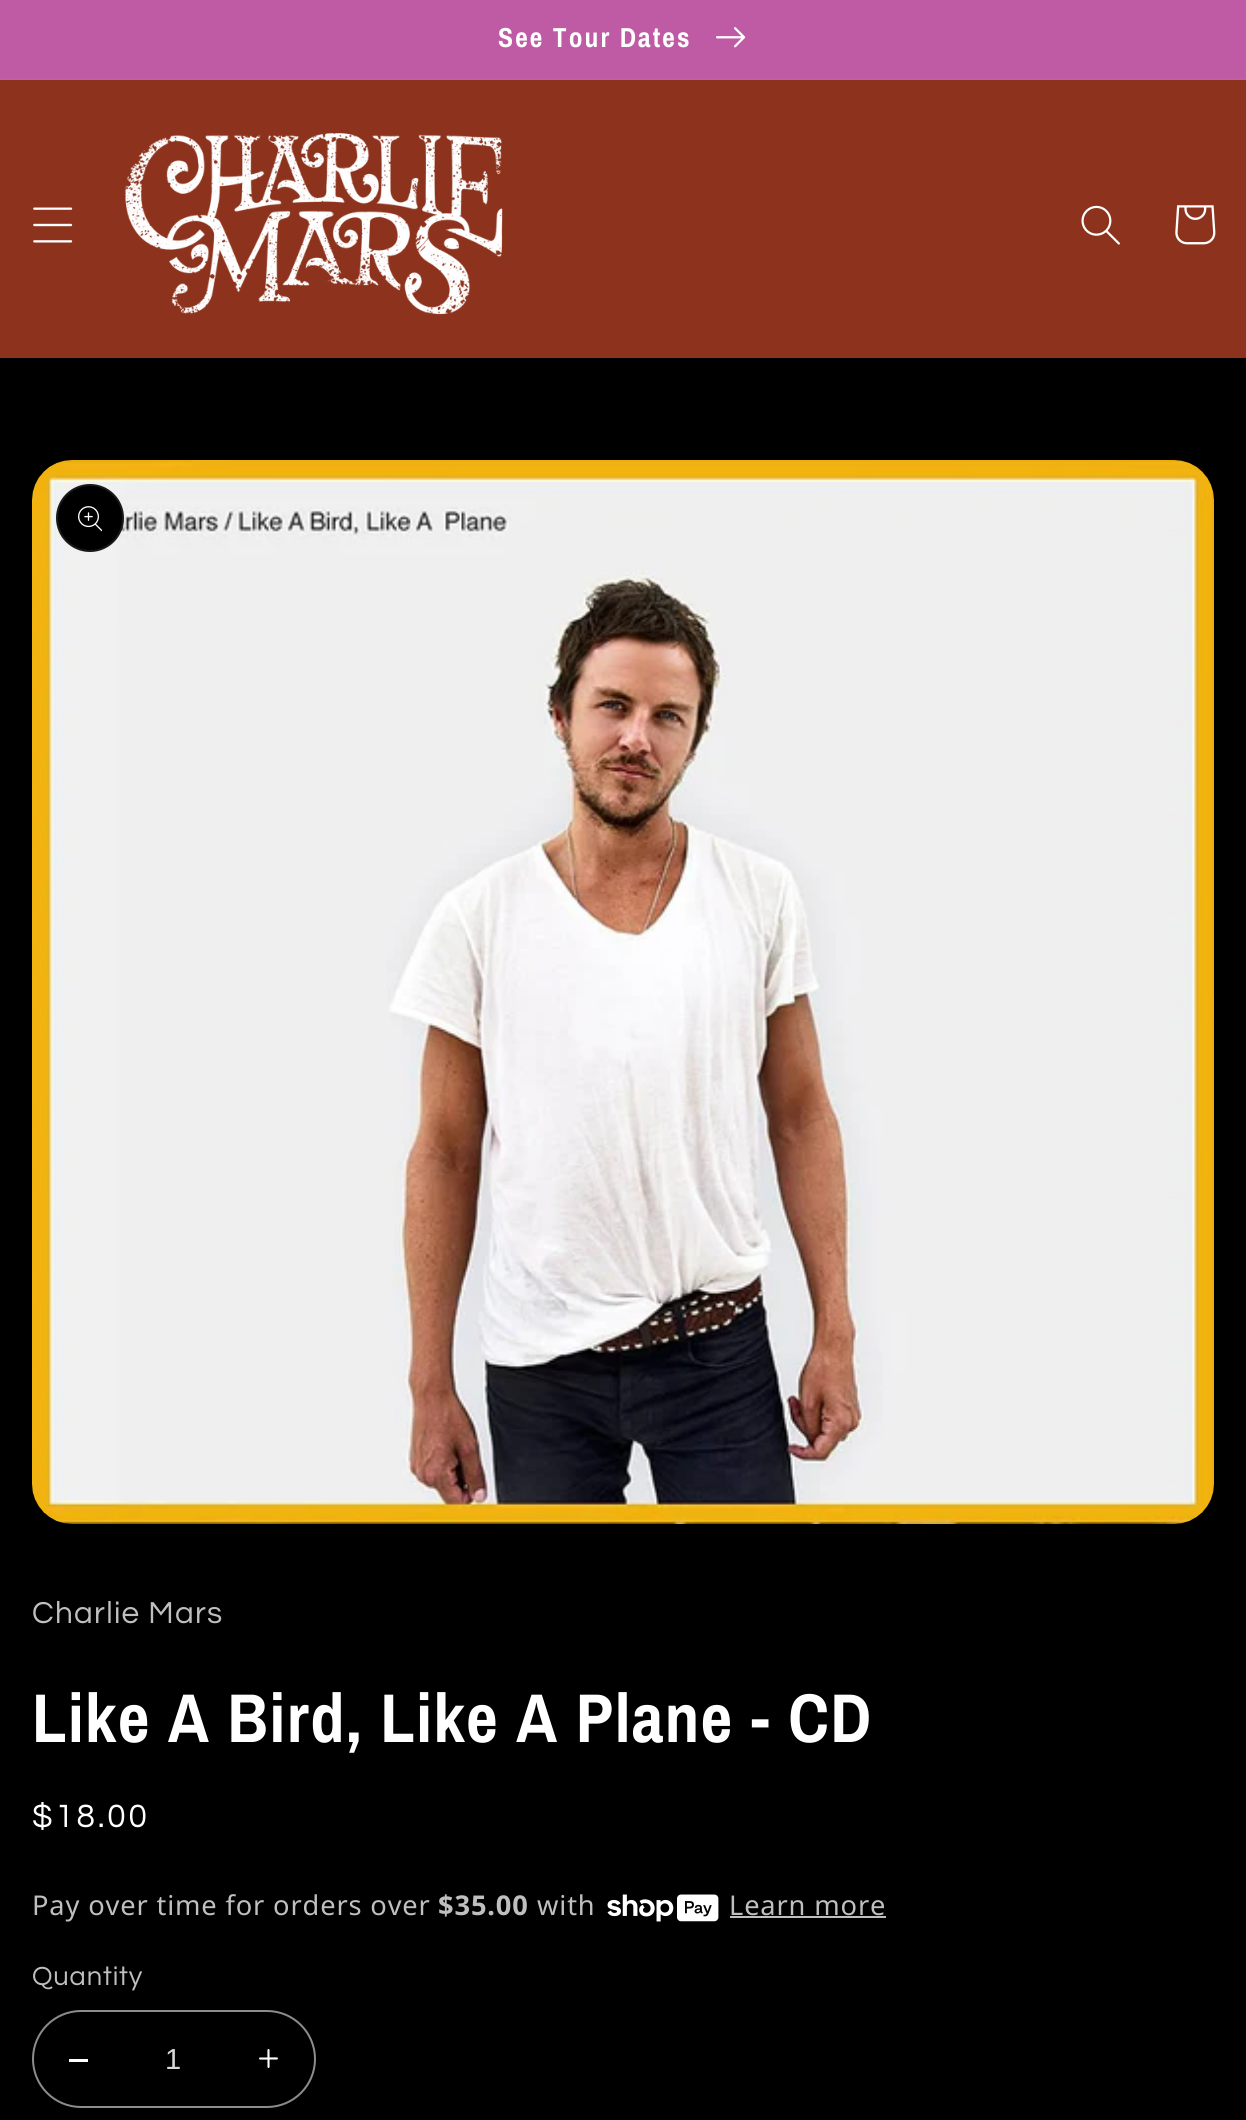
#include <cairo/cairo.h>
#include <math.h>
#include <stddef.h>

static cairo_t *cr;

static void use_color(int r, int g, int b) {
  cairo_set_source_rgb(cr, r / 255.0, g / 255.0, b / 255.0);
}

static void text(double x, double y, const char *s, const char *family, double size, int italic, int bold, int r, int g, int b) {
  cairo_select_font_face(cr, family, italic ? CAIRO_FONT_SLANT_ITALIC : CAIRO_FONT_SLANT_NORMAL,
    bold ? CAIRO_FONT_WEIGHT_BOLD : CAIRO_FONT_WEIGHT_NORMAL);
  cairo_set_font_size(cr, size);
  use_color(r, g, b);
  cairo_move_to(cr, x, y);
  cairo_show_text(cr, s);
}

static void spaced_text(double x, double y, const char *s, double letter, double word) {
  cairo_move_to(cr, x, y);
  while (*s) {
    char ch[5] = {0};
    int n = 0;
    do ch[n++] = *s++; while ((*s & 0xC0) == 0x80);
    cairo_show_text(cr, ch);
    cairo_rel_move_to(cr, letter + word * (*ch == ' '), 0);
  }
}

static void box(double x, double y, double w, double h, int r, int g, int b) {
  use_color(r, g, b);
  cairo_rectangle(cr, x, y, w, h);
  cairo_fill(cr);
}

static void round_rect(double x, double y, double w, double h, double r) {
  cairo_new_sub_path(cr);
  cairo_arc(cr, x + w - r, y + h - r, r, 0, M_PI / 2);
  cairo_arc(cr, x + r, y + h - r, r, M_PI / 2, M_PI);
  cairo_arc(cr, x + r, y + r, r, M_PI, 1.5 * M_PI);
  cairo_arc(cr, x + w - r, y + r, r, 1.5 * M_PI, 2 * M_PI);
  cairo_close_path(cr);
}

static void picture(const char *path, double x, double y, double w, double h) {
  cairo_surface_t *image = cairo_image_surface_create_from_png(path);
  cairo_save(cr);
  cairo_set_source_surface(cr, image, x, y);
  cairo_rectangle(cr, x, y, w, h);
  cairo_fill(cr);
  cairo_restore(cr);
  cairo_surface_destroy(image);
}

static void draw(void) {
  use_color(0, 0, 0);
  cairo_paint(cr);
  box(0, 78, 1246, 2, 192, 94, 166);
  box(0, 0, 1246, 78, 191, 91, 164);
  picture("img_01.png", 716, 27, 30, 21);
  box(0, 80, 1246, 278, 141, 51, 29);
  picture("img_02.png", 33, 207, 40, 36);
  picture("img_03.png", 125, 133, 378, 182);
  picture("img_04.png", 1081, 205, 39, 40);
  picture("img_05.png", 1175, 205, 41, 40);
  picture("img_06.png", 32, 460, 1182, 1064);
  use_color(0, 0, 0);
  cairo_arc(cr, 90, 518, 34, 0, 2 * M_PI);
  cairo_fill(cr);
  cairo_arc(cr, 90, 518, 33, 0, 2 * M_PI);
  cairo_set_source_rgba(cr, 1, 1, 1, 0.1);
  cairo_stroke(cr);
  picture("img_07.png", 78, 506, 24, 26);
  picture("img_08.png", 607, 1894, 112, 28);
  box(730, 1916, 156, 2, 191, 191, 191);
  box(69, 2059, 19, 3, 255, 255, 255);
  picture("img_09.png", 259, 2049, 19, 19);
  round_rect(33, 2011, 282, 96, 48);
  use_color(140, 140, 140);
  cairo_stroke(cr);
  cairo_select_font_face(cr, "Archivo Narrow", CAIRO_FONT_SLANT_NORMAL, CAIRO_FONT_WEIGHT_BOLD);
  cairo_set_font_size(cr, 27.5);
  use_color(255, 255, 255);
  spaced_text(498, 47, "See Tour Dates", 2.1, 0);
  cairo_select_font_face(cr, "Questrial", CAIRO_FONT_SLANT_NORMAL, CAIRO_FONT_WEIGHT_NORMAL);
  cairo_set_font_size(cr, 31.5);
  use_color(191, 191, 191);
  spaced_text(32, 1623, "Charlie Mars", 1.25, 0);
  cairo_select_font_face(cr, "Archivo Narrow", CAIRO_FONT_SLANT_NORMAL, CAIRO_FONT_WEIGHT_BOLD);
  cairo_set_font_size(cr, 69);
  use_color(255, 255, 255);
  spaced_text(32, 1742, "Like A Bird, Like A Plane - CD", 1.4, 0);
  cairo_select_font_face(cr, "Questrial", CAIRO_FONT_SLANT_NORMAL, CAIRO_FONT_WEIGHT_NORMAL);
  cairo_set_font_size(cr, 33.5);
  spaced_text(32, 1827, "$18.00", 2.75, 0);
  cairo_select_font_face(cr, "Noto Sans", CAIRO_FONT_SLANT_NORMAL, CAIRO_FONT_WEIGHT_NORMAL);
  cairo_set_font_size(cr, 27.25);
  use_color(191, 191, 191);
  spaced_text(32, 1915, "Pay over time for orders over", 0.85, 0);
  cairo_select_font_face(cr, "Noto Sans", CAIRO_FONT_SLANT_NORMAL, CAIRO_FONT_WEIGHT_BOLD);
  spaced_text(438, 1915, "$35.00", 0.85, 0);
  cairo_select_font_face(cr, "Noto Sans", CAIRO_FONT_SLANT_NORMAL, CAIRO_FONT_WEIGHT_NORMAL);
  spaced_text(537, 1915, "with", 0.85, 0);
  spaced_text(729, 1915, "Learn more", 0.85, 0);
  cairo_select_font_face(cr, "Questrial", CAIRO_FONT_SLANT_NORMAL, CAIRO_FONT_WEIGHT_NORMAL);
  spaced_text(32, 1985, "Quantity", 0.85, 0);
  text(165, 2069, "1", "Liberation Sans", 29, 0, 0, 217, 217, 217);
}

int main(void) {
  cairo_surface_t *surface = cairo_image_surface_create(CAIRO_FORMAT_RGB24, 1246, 2120);
  cr = cairo_create(surface);
  cairo_font_options_t *options = cairo_font_options_create();
  cairo_font_options_set_hint_metrics(options, CAIRO_HINT_METRICS_OFF);
  cairo_font_options_set_hint_style(options, CAIRO_HINT_STYLE_NONE);
  cairo_set_font_options(cr, options);
  cairo_set_miter_limit(cr, 4);
  draw();
  cairo_surface_write_to_png(surface, "out.png");
  cairo_font_options_destroy(options);
  cairo_destroy(cr);
  cairo_surface_destroy(surface);
  return 0;
}
